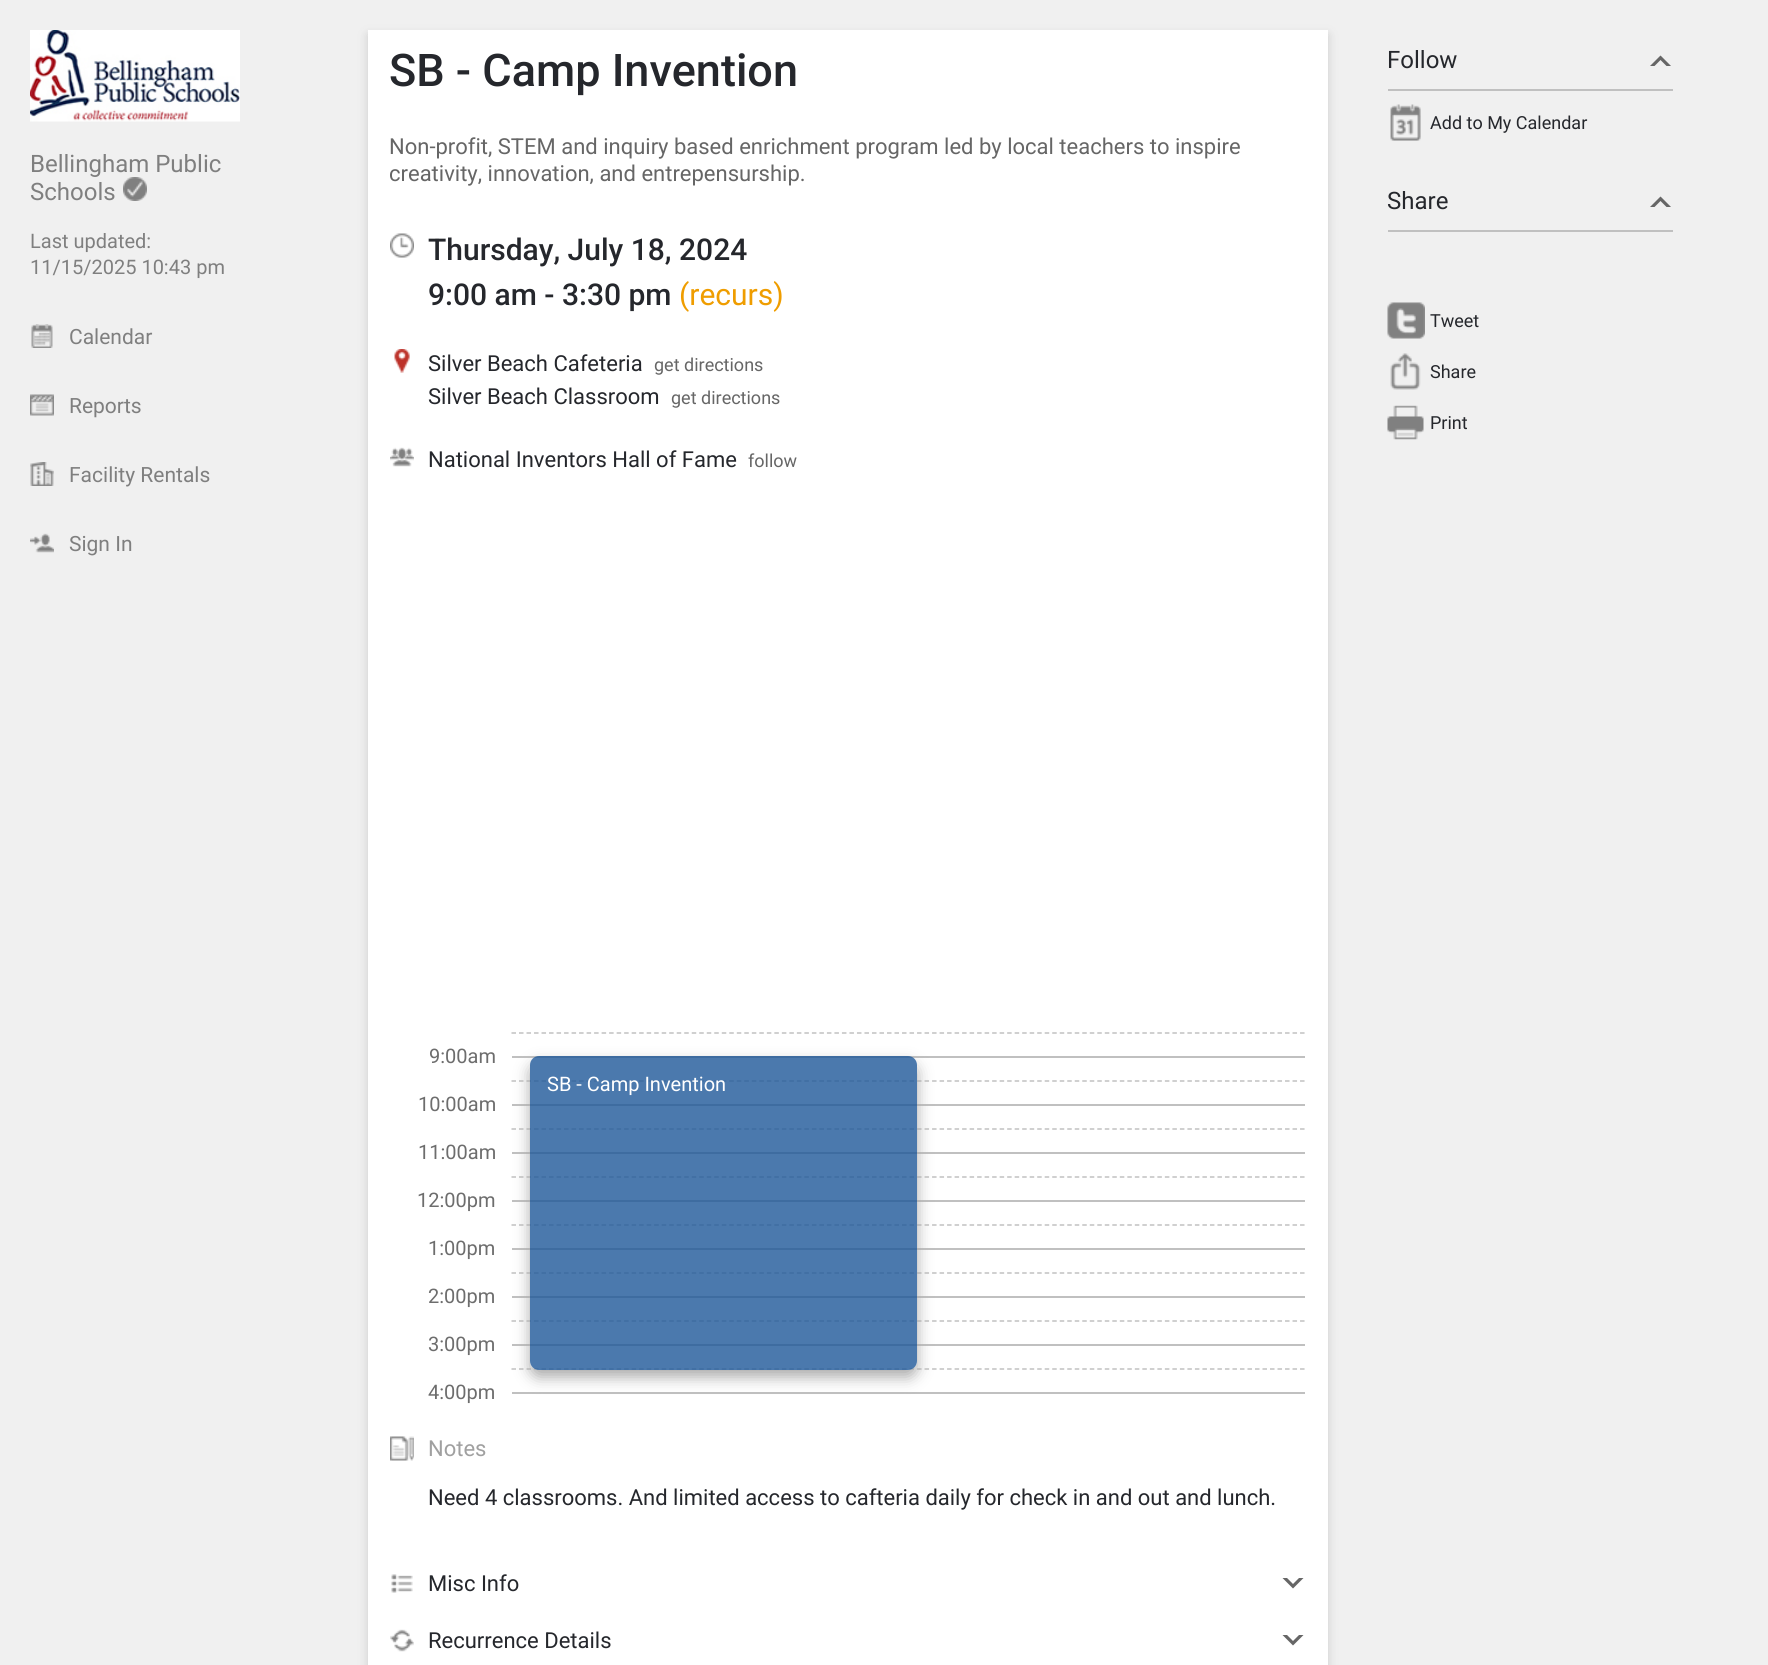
#include <cairo/cairo.h>
#include <math.h>
#include <stddef.h>

static cairo_t *cr;

static void use_color(int r, int g, int b) {
  cairo_set_source_rgb(cr, r / 255.0, g / 255.0, b / 255.0);
}

static void text(double x, double y, const char *s, const char *family, double size, int italic, int bold, int r, int g, int b) {
  cairo_select_font_face(cr, family, italic ? CAIRO_FONT_SLANT_ITALIC : CAIRO_FONT_SLANT_NORMAL,
    bold ? CAIRO_FONT_WEIGHT_BOLD : CAIRO_FONT_WEIGHT_NORMAL);
  cairo_set_font_size(cr, size);
  use_color(r, g, b);
  cairo_move_to(cr, x, y);
  cairo_show_text(cr, s);
}

static void box(double x, double y, double w, double h, int r, int g, int b) {
  use_color(r, g, b);
  cairo_rectangle(cr, x, y, w, h);
  cairo_fill(cr);
}

static void round_rect(double x, double y, double w, double h, double r) {
  cairo_new_sub_path(cr);
  cairo_arc(cr, x + w - r, y + h - r, r, 0, M_PI / 2);
  cairo_arc(cr, x + r, y + h - r, r, M_PI / 2, M_PI);
  cairo_arc(cr, x + r, y + r, r, M_PI, 1.5 * M_PI);
  cairo_arc(cr, x + w - r, y + r, r, 1.5 * M_PI, 2 * M_PI);
  cairo_close_path(cr);
}

static void shadow(double x, double y, double w, double h, double r, double blur, double alpha) {
  cairo_push_group_with_content(cr, CAIRO_CONTENT_ALPHA);
  cairo_set_operator(cr, CAIRO_OPERATOR_SOURCE);
  for (int i = 15; i >= -15 && fmin(w, h) + blur * i / 3 > 0; i -= 2) {
    double e = blur * i / 6;
    cairo_set_source_rgba(cr, 0, 0, 0, alpha * erfc((i - 1) / 8.5) / 2);
    round_rect(x - e, y - e, w + 2 * e, h + 2 * e, fmax(0, fmin(r + e + blur * .6, fmin(w, h) / 2 + e)));
    cairo_fill(cr);
  }
  cairo_pattern_t *soft = cairo_pop_group(cr);
  cairo_mask(cr, soft);
  cairo_pattern_destroy(soft);
}

static void picture(const char *path, double x, double y, double w, double h) {
  cairo_surface_t *image = cairo_image_surface_create_from_png(path);
  cairo_save(cr);
  cairo_set_source_surface(cr, image, x, y);
  cairo_rectangle(cr, x, y, w, h);
  cairo_fill(cr);
  cairo_restore(cr);
  cairo_surface_destroy(image);
}

static void draw(void) {
  use_color(240, 240, 240);
  cairo_paint(cr);
  picture("img_01.png", 30, 30, 210, 92);
  picture("img_02.png", 123, 177, 24, 24);
  picture("img_03.png", 31, 324, 22, 24);
  picture("img_04.png", 30, 394, 24, 22);
  picture("img_05.png", 30, 462, 24, 24);
  picture("img_06.png", 30, 533, 24, 20);
  use_color(204, 204, 204);
  shadow(368, 35, 960, 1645, 0, 5, 1);
  box(368, 30, 960, 1635, 255, 255, 255);
  picture("img_07.png", 390, 233, 24, 25);
  picture("img_08.png", 394, 349, 16, 24);
  picture("img_09.png", 390, 447, 24, 20);
  cairo_new_path(cr);
  cairo_move_to(cr, 511.5, 1033);
  cairo_line_to(cr, 1305, 1033);
  use_color(192, 192, 192);
  cairo_set_line_width(cr, 1.5);
  cairo_set_dash(cr, (double[]){4.5, 3.01}, 2, 0);
  cairo_stroke(cr);
  box(512, 1056, 793, 2, 192, 192, 192);
  cairo_new_path(cr);
  cairo_move_to(cr, 511.5, 1081);
  cairo_line_to(cr, 1305, 1081);
  cairo_stroke(cr);
  box(512, 1104, 793, 2, 192, 192, 192);
  cairo_new_path(cr);
  cairo_move_to(cr, 511.5, 1129);
  cairo_line_to(cr, 1305, 1129);
  cairo_stroke(cr);
  box(512, 1152, 793, 2, 192, 192, 192);
  cairo_new_path(cr);
  cairo_move_to(cr, 511.5, 1177);
  cairo_line_to(cr, 1305, 1177);
  cairo_stroke(cr);
  box(512, 1200, 793, 2, 192, 192, 192);
  cairo_new_path(cr);
  cairo_move_to(cr, 511.5, 1225);
  cairo_line_to(cr, 1305, 1225);
  cairo_stroke(cr);
  box(512, 1248, 793, 2, 192, 192, 192);
  cairo_new_path(cr);
  cairo_move_to(cr, 511.5, 1273);
  cairo_line_to(cr, 1305, 1273);
  cairo_stroke(cr);
  box(512, 1296, 793, 2, 192, 192, 192);
  cairo_new_path(cr);
  cairo_move_to(cr, 511.5, 1321);
  cairo_line_to(cr, 1305, 1321);
  cairo_stroke(cr);
  box(512, 1344, 793, 2, 192, 192, 192);
  cairo_new_path(cr);
  cairo_move_to(cr, 511.5, 1369);
  cairo_line_to(cr, 1305, 1369);
  cairo_stroke(cr);
  box(512, 1392, 793, 2, 192, 192, 192);
  cairo_save(cr);
  cairo_set_fill_rule(cr, CAIRO_FILL_RULE_EVEN_ODD);
  cairo_new_path(cr);
  cairo_move_to(cr, 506, 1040);
  cairo_line_to(cr, 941, 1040);
  cairo_line_to(cr, 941, 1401);
  cairo_line_to(cr, 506, 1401);
  cairo_close_path(cr);
  cairo_move_to(cr, 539, 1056);
  cairo_line_to(cr, 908, 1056);
  cairo_curve_to(cr, 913, 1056, 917, 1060, 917, 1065);
  cairo_line_to(cr, 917, 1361);
  cairo_curve_to(cr, 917, 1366, 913, 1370, 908, 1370);
  cairo_line_to(cr, 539, 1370);
  cairo_curve_to(cr, 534, 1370, 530, 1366, 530, 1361);
  cairo_line_to(cr, 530, 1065);
  cairo_curve_to(cr, 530, 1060, 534, 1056, 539, 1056);
  cairo_close_path(cr);
  cairo_clip(cr);
  use_color(170, 170, 170);
  shadow(530, 1064, 387, 313, 9, 7.5, 1);
  cairo_restore(cr);
  cairo_set_source_rgba(cr, 0.118, 0.345, 0.6, 0.8);
  round_rect(530, 1056, 387, 314, 9);
  cairo_fill(cr);
  picture("img_10.png", 390, 1436, 24, 25);
  picture("img_11.png", 391, 1574, 22, 19);
  use_color(102, 102, 102);
  cairo_new_path(cr);
  cairo_move_to(cr, 1282.5, 1578);
  cairo_line_to(cr, 1303.5, 1578);
  cairo_line_to(cr, 1293, 1588.5);
  cairo_close_path(cr);
  cairo_fill(cr);
  use_color(255, 255, 255);
  cairo_new_path(cr);
  cairo_move_to(cr, 1282.5, 1573.5);
  cairo_line_to(cr, 1303.5, 1573.5);
  cairo_line_to(cr, 1293, 1584);
  cairo_close_path(cr);
  cairo_fill(cr);
  picture("img_12.png", 390, 1629, 24, 23);
  use_color(102, 102, 102);
  cairo_new_path(cr);
  cairo_move_to(cr, 1282.5, 1635);
  cairo_line_to(cr, 1303.5, 1635);
  cairo_line_to(cr, 1293, 1645.5);
  cairo_close_path(cr);
  cairo_fill(cr);
  use_color(255, 255, 255);
  cairo_new_path(cr);
  cairo_move_to(cr, 1282.5, 1630.5);
  cairo_line_to(cr, 1303.5, 1630.5);
  cairo_line_to(cr, 1293, 1641);
  cairo_close_path(cr);
  cairo_fill(cr);
  use_color(102, 102, 102);
  cairo_new_path(cr);
  cairo_move_to(cr, 1671, 66);
  cairo_line_to(cr, 1650, 66);
  cairo_line_to(cr, 1660.5, 55.5);
  cairo_close_path(cr);
  cairo_fill(cr);
  use_color(240, 240, 240);
  cairo_new_path(cr);
  cairo_move_to(cr, 1671, 70.5);
  cairo_line_to(cr, 1650, 70.5);
  cairo_line_to(cr, 1660.5, 60);
  cairo_close_path(cr);
  cairo_fill(cr);
  box(1388, 89, 285, 2, 192, 192, 192);
  picture("img_13.png", 1390, 104, 31, 37);
  use_color(102, 102, 102);
  cairo_new_path(cr);
  cairo_move_to(cr, 1671, 207);
  cairo_line_to(cr, 1650, 207);
  cairo_line_to(cr, 1660.5, 196.5);
  cairo_close_path(cr);
  cairo_fill(cr);
  use_color(240, 240, 240);
  cairo_new_path(cr);
  cairo_move_to(cr, 1671, 211.5);
  cairo_line_to(cr, 1650, 211.5);
  cairo_line_to(cr, 1660.5, 201);
  cairo_close_path(cr);
  cairo_fill(cr);
  box(1388, 230, 285, 2, 192, 192, 192);
  picture("img_14.png", 1387, 302, 38, 37);
  picture("img_15.png", 1390, 353, 31, 37);
  picture("img_16.png", 1387, 405, 37, 35);
  text(30, 172, "Bellingham Public", "Roboto", 24, 0, 0, 127, 127, 127);
  text(30, 200, "Schools", "Roboto", 24, 0, 0, 127, 127, 127);
  text(30, 248, "Last updated:", "Roboto", 20, 0, 0, 127, 127, 127);
  text(30, 274, "11/15/2025 10:43 pm", "Roboto", 20, 0, 0, 127, 127, 127);
  text(69, 344, "Calendar", "Roboto", 21, 0, 0, 127, 127, 127);
  text(69, 413, "Reports", "Roboto", 21, 0, 0, 127, 127, 127);
  text(69, 482, "Facility Rentals", "Roboto", 21, 0, 0, 127, 127, 127);
  text(69, 551, "Sign In", "Roboto", 21, 0, 0, 127, 127, 127);
  text(389, 86, "SB - Camp Invention", "Roboto Medium", 45, 0, 0, 37, 39, 44);
  text(389, 154, "Non-profit, STEM and inquiry based enrichment program led by local teachers to inspire", "Roboto", 22, 0, 0, 102, 102, 102);
  text(389, 181, "creativity, innovation, and entrepensurship.", "Roboto", 22, 0, 0, 102, 102, 102);
  text(428, 260, "Thursday, July 18, 2024", "Roboto Medium", 30, 0, 0, 37, 39, 44);
  text(428, 305, "9:00 am - 3:30 pm", "Roboto Medium", 30, 0, 0, 37, 39, 44);
  text(679, 305, "(recurs)", "Roboto", 30, 0, 0, 239, 157, 0);
  text(428, 371, "Silver Beach Cafeteria", "Roboto", 22, 0, 0, 37, 39, 44);
  text(654, 371, "get directions", "Roboto", 18, 0, 0, 102, 102, 102);
  text(428, 404, "Silver Beach Classroom", "Roboto", 22, 0, 0, 37, 39, 44);
  text(671, 404, "get directions", "Roboto", 18, 0, 0, 102, 102, 102);
  text(428, 467, "National Inventors Hall of Fame", "Roboto", 22, 0, 0, 37, 39, 44);
  text(748, 467, "follow", "Roboto", 18, 0, 0, 102, 102, 102);
  text(429, 1063, "9:00am", "Roboto", 20, 0, 0, 109, 109, 109);
  text(418, 1111, "10:00am", "Roboto", 20, 0, 0, 109, 109, 109);
  text(418, 1159, "11:00am", "Roboto", 20, 0, 0, 109, 109, 109);
  text(417, 1207, "12:00pm", "Roboto", 20, 0, 0, 109, 109, 109);
  text(428, 1255, "1:00pm", "Roboto", 20, 0, 0, 109, 109, 109);
  text(428, 1303, "2:00pm", "Roboto", 20, 0, 0, 109, 109, 109);
  text(428, 1351, "3:00pm", "Roboto", 20, 0, 0, 109, 109, 109);
  text(428, 1399, "4:00pm", "Roboto", 20, 0, 0, 109, 109, 109);
  text(547, 1091, "SB - Camp Invention", "Roboto", 20, 0, 0, 255, 255, 255);
  text(428, 1456, "Notes", "Roboto", 22, 0, 0, 160, 160, 160);
  text(428, 1505, "Need 4 classrooms. And limited access to cafteria daily for check in and out and lunch.", "Roboto", 22, 0, 0, 37, 39, 44);
  text(428, 1591, "Misc Info", "Roboto", 22, 0, 0, 37, 39, 44);
  text(428, 1648, "Recurrence Details", "Roboto", 22, 0, 0, 37, 39, 44);
  text(1387, 68, "Follow", "Roboto", 24, 0, 0, 37, 39, 44);
  text(1430, 129, "Add to My Calendar", "Roboto", 18, 0, 0, 37, 39, 44);
  text(1387, 209, "Share", "Roboto", 24, 0, 0, 37, 39, 44);
  text(1430, 327, "Tweet", "Roboto", 18, 0, 0, 37, 39, 44);
  text(1430, 378, "Share", "Roboto", 18, 0, 0, 37, 39, 44);
  text(1430, 429, "Print", "Roboto", 18, 0, 0, 37, 39, 44);
}

int main(void) {
  cairo_surface_t *surface = cairo_image_surface_create(CAIRO_FORMAT_RGB24, 1768, 1665);
  cr = cairo_create(surface);
  cairo_font_options_t *options = cairo_font_options_create();
  cairo_font_options_set_hint_metrics(options, CAIRO_HINT_METRICS_OFF);
  cairo_font_options_set_hint_style(options, CAIRO_HINT_STYLE_NONE);
  cairo_set_font_options(cr, options);
  cairo_set_miter_limit(cr, 4);
  draw();
  cairo_surface_write_to_png(surface, "out.png");
  cairo_font_options_destroy(options);
  cairo_destroy(cr);
  cairo_surface_destroy(surface);
  return 0;
}
